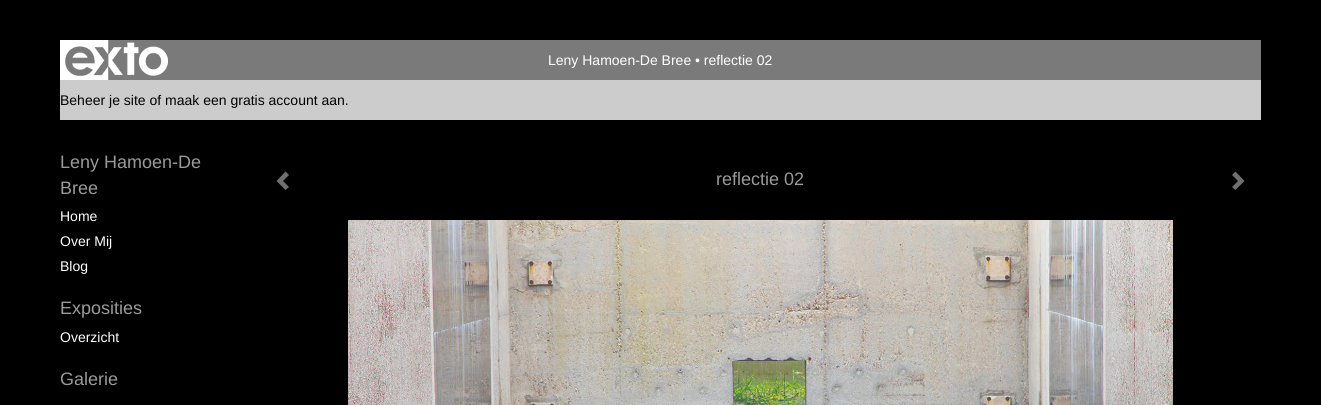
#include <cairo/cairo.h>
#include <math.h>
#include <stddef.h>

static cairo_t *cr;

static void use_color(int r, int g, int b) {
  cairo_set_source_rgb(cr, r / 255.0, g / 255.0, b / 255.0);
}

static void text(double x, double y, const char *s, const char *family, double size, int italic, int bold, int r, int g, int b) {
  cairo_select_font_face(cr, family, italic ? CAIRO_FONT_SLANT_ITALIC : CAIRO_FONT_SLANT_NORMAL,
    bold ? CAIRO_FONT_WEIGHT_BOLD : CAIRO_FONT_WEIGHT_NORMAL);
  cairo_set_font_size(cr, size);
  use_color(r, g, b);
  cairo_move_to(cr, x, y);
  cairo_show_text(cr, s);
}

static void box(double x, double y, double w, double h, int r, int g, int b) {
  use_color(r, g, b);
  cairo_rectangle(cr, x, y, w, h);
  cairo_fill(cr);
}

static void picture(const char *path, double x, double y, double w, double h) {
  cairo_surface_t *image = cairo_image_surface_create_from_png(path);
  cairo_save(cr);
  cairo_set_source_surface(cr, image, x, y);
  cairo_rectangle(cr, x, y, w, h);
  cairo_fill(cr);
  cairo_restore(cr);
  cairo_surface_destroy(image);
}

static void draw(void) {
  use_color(0, 0, 0);
  cairo_paint(cr);
  box(65, 40, 1196, 40, 122, 122, 122);
  picture("img_01.png", 60, 40, 108, 40);
  box(60, 80, 1201, 40, 204, 204, 204);
  use_color(111, 111, 111);
  cairo_new_path(cr);
  cairo_move_to(cr, 289, 175);
  cairo_line_to(cr, 283, 181);
  cairo_line_to(cr, 289, 187);
  cairo_line_to(cr, 285.5, 190);
  cairo_line_to(cr, 276.5, 181);
  cairo_line_to(cr, 285.5, 171.5);
  cairo_close_path(cr);
  cairo_fill(cr);
  cairo_new_path(cr);
  cairo_move_to(cr, 1244.5, 181);
  cairo_line_to(cr, 1235.5, 190);
  cairo_line_to(cr, 1232, 187);
  cairo_line_to(cr, 1238, 181);
  cairo_line_to(cr, 1232, 175);
  cairo_line_to(cr, 1235.5, 171.5);
  cairo_close_path(cr);
  cairo_fill(cr);
  picture("img_02.png", 348, 220, 825, 185);
  text(548, 65, "Leny Hamoen-De Bree • reflectie 02", "Liberation Sans", 14, 0, 0, 255, 255, 255);
  text(60, 105, "Beheer je site of maak een gratis account aan.", "Liberation Sans", 14, 0, 0, 0, 0, 0);
  text(60, 168, "Leny Hamoen-De", "Liberation Sans", 18, 0, 0, 154, 154, 154);
  text(60, 194, "Bree", "Liberation Sans", 18, 0, 0, 154, 154, 154);
  text(60, 221, "Home", "Liberation Sans", 14, 0, 0, 255, 255, 255);
  text(60, 246, "Over Mij", "Liberation Sans", 14, 0, 0, 255, 255, 255);
  text(60, 271, "Blog", "Liberation Sans", 14, 0, 0, 255, 255, 255);
  text(60, 314, "Exposities", "Liberation Sans", 18, 0, 0, 154, 154, 154);
  text(60, 342, "Overzicht", "Liberation Sans", 14, 0, 0, 255, 255, 255);
  text(60, 385, "Galerie", "Liberation Sans", 18, 0, 0, 154, 154, 154);
  text(716, 185, "reflectie 02", "Liberation Sans", 18, 0, 0, 154, 154, 154);
}

int main(void) {
  cairo_surface_t *surface = cairo_image_surface_create(CAIRO_FORMAT_RGB24, 1321, 405);
  cr = cairo_create(surface);
  cairo_font_options_t *options = cairo_font_options_create();
  cairo_font_options_set_hint_metrics(options, CAIRO_HINT_METRICS_OFF);
  cairo_font_options_set_hint_style(options, CAIRO_HINT_STYLE_NONE);
  cairo_set_font_options(cr, options);
  cairo_set_miter_limit(cr, 4);
  draw();
  cairo_surface_write_to_png(surface, "out.png");
  cairo_font_options_destroy(options);
  cairo_destroy(cr);
  cairo_surface_destroy(surface);
  return 0;
}
